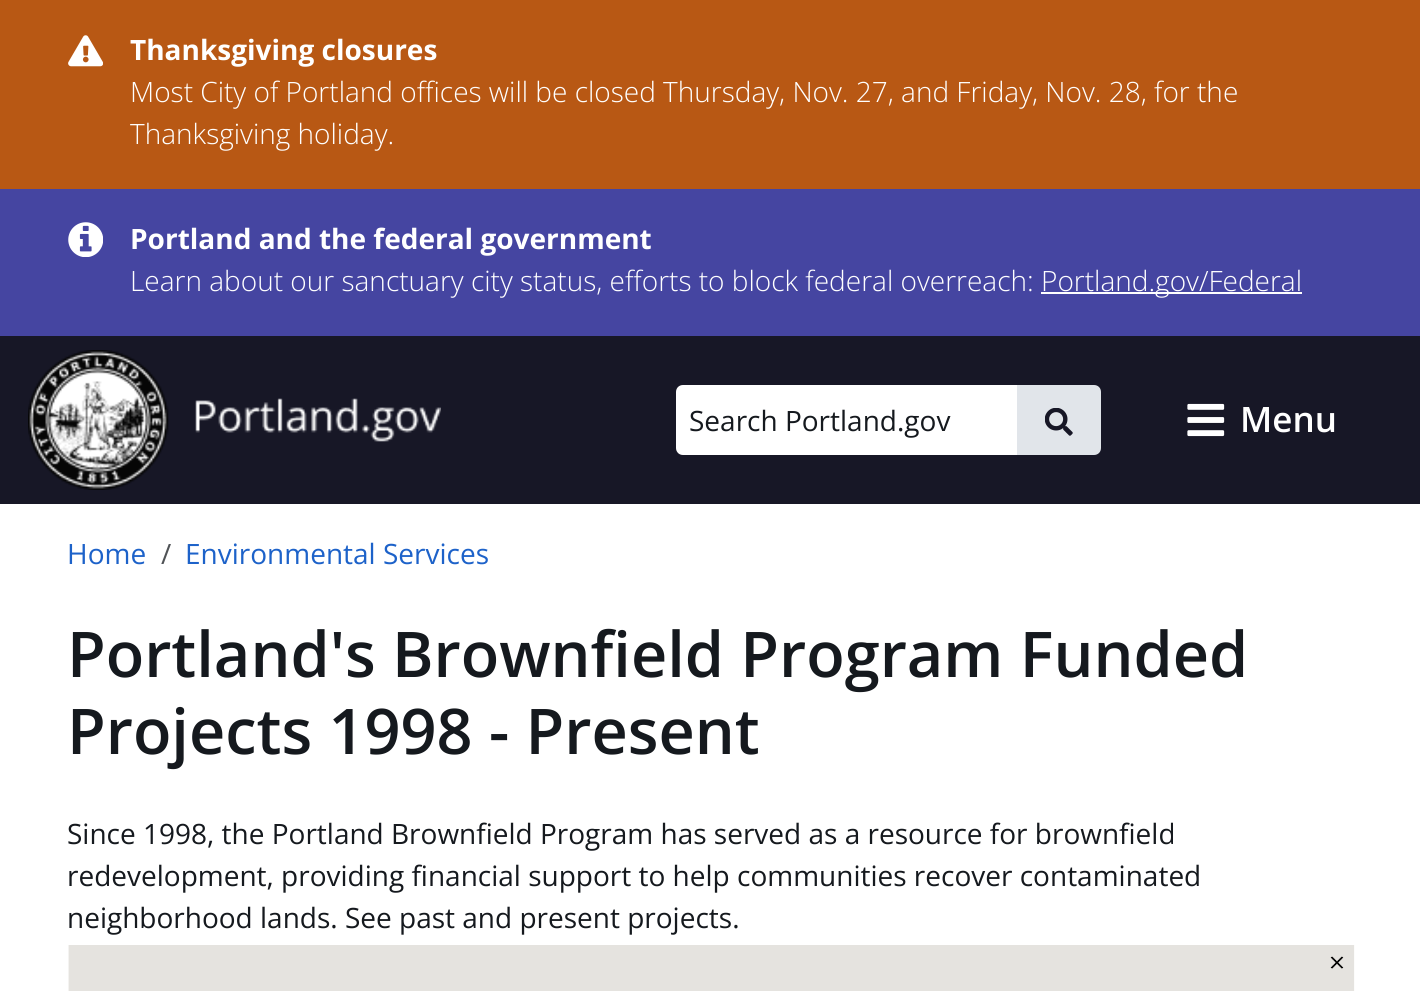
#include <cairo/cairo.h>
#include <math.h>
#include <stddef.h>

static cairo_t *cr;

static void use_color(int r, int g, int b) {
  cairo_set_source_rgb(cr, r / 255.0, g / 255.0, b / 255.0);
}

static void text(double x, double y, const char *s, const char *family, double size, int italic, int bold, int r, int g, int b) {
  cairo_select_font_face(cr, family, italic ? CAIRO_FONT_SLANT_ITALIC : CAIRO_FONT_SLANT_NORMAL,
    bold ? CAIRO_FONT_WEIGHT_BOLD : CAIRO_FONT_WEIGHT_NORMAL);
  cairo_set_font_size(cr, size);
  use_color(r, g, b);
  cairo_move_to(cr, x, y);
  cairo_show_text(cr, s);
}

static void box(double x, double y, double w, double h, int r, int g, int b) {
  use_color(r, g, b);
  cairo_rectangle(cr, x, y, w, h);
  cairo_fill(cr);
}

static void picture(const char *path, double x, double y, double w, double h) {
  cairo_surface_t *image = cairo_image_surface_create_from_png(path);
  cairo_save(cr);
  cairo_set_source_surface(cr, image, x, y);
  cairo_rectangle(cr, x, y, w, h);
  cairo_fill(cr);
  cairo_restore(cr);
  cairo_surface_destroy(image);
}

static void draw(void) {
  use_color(255, 255, 255);
  cairo_paint(cr);
  box(0, 0, 1420, 189, 184, 88, 20);
  picture("img_01.png", 68, 35, 35, 32);
  box(0, 189, 1420, 147, 69, 69, 161);
  picture("img_02.png", 68, 222, 35, 35);
  box(1041, 292, 261, 2, 255, 255, 255);
  box(0, 336, 1420, 168, 23, 23, 38);
  picture("img_03.png", 28, 350, 413, 140);
  use_color(255, 255, 255);
  cairo_new_path(cr);
  cairo_move_to(cr, 683, 385);
  cairo_line_to(cr, 1017, 385);
  cairo_line_to(cr, 1017, 455);
  cairo_line_to(cr, 683, 455);
  cairo_curve_to(cr, 679, 455, 676, 452, 676, 448);
  cairo_line_to(cr, 676, 392);
  cairo_curve_to(cr, 676, 388, 679, 385, 683, 385);
  cairo_close_path(cr);
  cairo_fill(cr);
  use_color(225, 229, 234);
  cairo_new_path(cr);
  cairo_move_to(cr, 1017, 385);
  cairo_line_to(cr, 1094, 385);
  cairo_curve_to(cr, 1098, 385, 1101, 388, 1101, 392);
  cairo_line_to(cr, 1101, 448);
  cairo_curve_to(cr, 1101, 452, 1098, 455, 1094, 455);
  cairo_line_to(cr, 1017, 455);
  cairo_close_path(cr);
  cairo_fill(cr);
  picture("img_04.png", 1045, 408, 28, 28);
  picture("img_05.png", 1187, 403, 38, 34);
  picture("img_06.png", 68, 945, 1287, 46);
  text(130, 60, "Thanksgiving closures", "Open Sans", 28, 0, 1, 255, 255, 255);
  text(130, 102, "Most City of Portland offices will be closed Thursday, Nov. 27, and Friday, Nov. 28, for the", "Open Sans Light", 28, 0, 0, 255, 255, 255);
  text(130, 144, "Thanksgiving holiday.", "Open Sans Light", 28, 0, 0, 255, 255, 255);
  text(130, 249, "Portland and the federal government", "Open Sans", 28, 0, 1, 255, 255, 255);
  text(130, 291, "Learn about our sanctuary city status, efforts to block federal overreach:", "Open Sans Light", 28, 0, 0, 255, 255, 255);
  text(1041, 291, "Portland.gov/Federal", "Open Sans Light", 28, 0, 0, 255, 255, 255);
  text(689, 431, "Search Portland.gov", "Open Sans", 28, 0, 0, 21, 25, 30);
  text(1240, 432, "Menu", "Open Sans SemiBold", 35, 0, 0, 255, 255, 255);
  text(67, 564, "Home", "Open Sans", 28, 0, 0, 29, 98, 201);
  text(161, 564, "/", "Open Sans", 28, 0, 0, 80, 83, 86);
  text(185, 564, "Environmental Services", "Open Sans", 28, 0, 0, 29, 98, 201);
  text(67, 677, "Portland's Brownfield Program Funded", "Open Sans SemiBold", 63, 0, 0, 21, 25, 30);
  text(67, 754, "Projects 1998 - Present", "Open Sans SemiBold", 63, 0, 0, 21, 25, 30);
  text(67, 844, "Since 1998, the Portland Brownfield Program has served as a resource for brownfield", "Open Sans", 28, 0, 0, 21, 25, 30);
  text(67, 886, "redevelopment, providing financial support to help communities recover contaminated", "Open Sans", 28, 0, 0, 21, 25, 30);
  text(67, 928, "neighborhood lands. See past and present projects.", "Open Sans", 28, 0, 0, 21, 25, 30);
}

int main(void) {
  cairo_surface_t *surface = cairo_image_surface_create(CAIRO_FORMAT_RGB24, 1420, 991);
  cr = cairo_create(surface);
  cairo_font_options_t *options = cairo_font_options_create();
  cairo_font_options_set_hint_metrics(options, CAIRO_HINT_METRICS_OFF);
  cairo_font_options_set_hint_style(options, CAIRO_HINT_STYLE_NONE);
  cairo_set_font_options(cr, options);
  cairo_set_miter_limit(cr, 4);
  draw();
  cairo_surface_write_to_png(surface, "out.png");
  cairo_font_options_destroy(options);
  cairo_destroy(cr);
  cairo_surface_destroy(surface);
  return 0;
}
